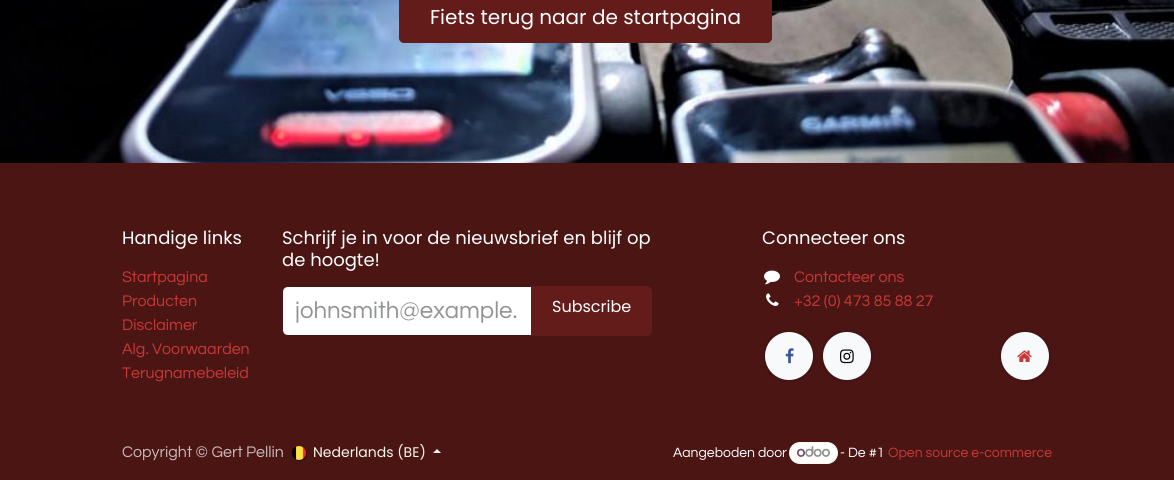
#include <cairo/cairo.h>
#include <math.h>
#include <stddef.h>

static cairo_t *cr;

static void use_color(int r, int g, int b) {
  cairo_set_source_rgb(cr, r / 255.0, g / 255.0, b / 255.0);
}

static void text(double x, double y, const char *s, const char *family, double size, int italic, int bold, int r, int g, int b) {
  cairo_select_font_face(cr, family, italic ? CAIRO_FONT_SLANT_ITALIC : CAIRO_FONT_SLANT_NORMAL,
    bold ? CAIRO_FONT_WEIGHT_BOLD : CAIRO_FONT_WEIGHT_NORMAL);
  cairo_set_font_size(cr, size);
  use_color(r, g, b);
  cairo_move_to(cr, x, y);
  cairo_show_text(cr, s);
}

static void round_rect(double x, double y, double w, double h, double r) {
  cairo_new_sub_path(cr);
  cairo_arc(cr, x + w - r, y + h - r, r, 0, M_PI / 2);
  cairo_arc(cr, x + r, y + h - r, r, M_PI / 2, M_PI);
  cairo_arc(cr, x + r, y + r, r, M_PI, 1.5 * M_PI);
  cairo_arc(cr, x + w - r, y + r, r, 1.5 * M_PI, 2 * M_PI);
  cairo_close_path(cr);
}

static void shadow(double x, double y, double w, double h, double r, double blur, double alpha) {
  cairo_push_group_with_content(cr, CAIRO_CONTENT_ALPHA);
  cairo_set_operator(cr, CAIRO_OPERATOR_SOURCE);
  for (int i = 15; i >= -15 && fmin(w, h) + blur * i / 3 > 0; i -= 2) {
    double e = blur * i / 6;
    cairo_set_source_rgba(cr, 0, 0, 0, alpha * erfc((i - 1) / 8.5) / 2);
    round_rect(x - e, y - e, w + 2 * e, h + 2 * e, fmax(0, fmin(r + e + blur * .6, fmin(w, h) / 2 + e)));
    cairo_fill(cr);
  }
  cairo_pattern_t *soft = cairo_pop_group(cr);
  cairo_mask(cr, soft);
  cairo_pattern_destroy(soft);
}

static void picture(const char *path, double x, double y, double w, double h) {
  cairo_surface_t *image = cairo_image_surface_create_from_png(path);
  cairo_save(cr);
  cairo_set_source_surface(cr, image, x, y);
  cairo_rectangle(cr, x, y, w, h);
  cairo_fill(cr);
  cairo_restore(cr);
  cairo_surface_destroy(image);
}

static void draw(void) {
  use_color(75, 21, 20);
  cairo_paint(cr);
  picture("img_01.png", 0, 0, 1174, 163);
  use_color(100, 28, 27);
  round_rect(399.5, -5.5, 372, 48, 4.5);
  cairo_fill_preserve(cr);
  cairo_set_line_width(cr, 1);
  cairo_stroke(cr);
  use_color(255, 255, 255);
  cairo_new_path(cr);
  cairo_move_to(cr, 288, 287);
  cairo_line_to(cr, 531, 287);
  cairo_line_to(cr, 531, 335);
  cairo_line_to(cr, 288, 335);
  cairo_curve_to(cr, 285, 335, 283, 333, 283, 330);
  cairo_line_to(cr, 283, 292);
  cairo_curve_to(cr, 283, 289, 285, 287, 288, 287);
  cairo_close_path(cr);
  cairo_fill(cr);
  cairo_new_path(cr);
  cairo_move_to(cr, 288, 286.5);
  cairo_line_to(cr, 531.5, 286.5);
  cairo_line_to(cr, 531.5, 335.5);
  cairo_line_to(cr, 288, 335.5);
  cairo_curve_to(cr, 285, 335.5, 282.5, 333, 282.5, 330);
  cairo_line_to(cr, 282.5, 292);
  cairo_curve_to(cr, 282.5, 289, 285, 286.5, 288, 286.5);
  cairo_close_path(cr);
  cairo_set_source_rgba(cr, 0.129, 0.145, 0.161, 0.15);
  cairo_stroke(cr);
  use_color(100, 28, 27);
  cairo_new_path(cr);
  cairo_move_to(cr, 531.5, 286.5);
  cairo_line_to(cr, 646, 286.5);
  cairo_curve_to(cr, 649, 286.5, 651.5, 289, 651.5, 292);
  cairo_line_to(cr, 651.5, 330);
  cairo_curve_to(cr, 651.5, 333, 649, 335.5, 646, 335.5);
  cairo_line_to(cr, 531.5, 335.5);
  cairo_close_path(cr);
  cairo_fill_preserve(cr);
  cairo_stroke(cr);
  picture("img_02.png", 764, 270, 16, 15);
  picture("img_03.png", 766, 293, 13, 13);
  use_color(0, 0, 0);
  shadow(765, 332, 48, 48, 24, 2.5, 0.25);
  use_color(248, 249, 250);
  cairo_arc(cr, 789, 356, 24, 0, 2 * M_PI);
  cairo_fill(cr);
  picture("img_04.png", 785, 348, 9, 16);
  use_color(0, 0, 0);
  shadow(823, 332, 48, 48, 24, 2.5, 0.25);
  use_color(248, 249, 250);
  cairo_arc(cr, 847, 356, 24, 0, 2 * M_PI);
  cairo_fill(cr);
  picture("img_05.png", 840, 349, 14, 15);
  use_color(0, 0, 0);
  shadow(1001, 332, 48, 48, 24, 2.5, 0.25);
  use_color(248, 249, 250);
  cairo_arc(cr, 1025, 356, 24, 0, 2 * M_PI);
  cairo_fill(cr);
  picture("img_06.png", 1017, 350, 15, 12);
  use_color(0, 0, 0);
  shadow(293, 447, 14, 14, 7, 0.5, 0.43);
  picture("img_07.png", 292, 446, 14, 14);
  use_color(249, 246, 235);
  cairo_new_path(cr);
  cairo_move_to(cr, 441, 453);
  cairo_line_to(cr, 433, 453);
  cairo_line_to(cr, 437, 449);
  cairo_close_path(cr);
  cairo_fill(cr);
  use_color(254, 254, 253);
  round_rect(789.5, 442.5, 48, 21, 10.5);
  cairo_fill_preserve(cr);
  use_color(249, 246, 235);
  cairo_stroke(cr);
  picture("img_08.png", 797, 446, 33, 11);
  text(430, 24, "Fiets terug naar de startpagina", "Poppins", 20, 0, 0, 255, 255, 255);
  text(122, 244, "Handige links", "Poppins", 18, 0, 0, 255, 255, 255);
  text(122, 282, "Startpagina", "Questrial", 16, 0, 0, 200, 56, 54);
  text(122, 306, "Producten", "Questrial", 16, 0, 0, 200, 56, 54);
  text(122, 330, "Disclaimer", "Questrial", 16, 0, 0, 200, 56, 54);
  text(122, 354, "Alg. Voorwaarden", "Questrial", 16, 0, 0, 200, 56, 54);
  text(122, 378, "Terugnamebeleid", "Questrial", 16, 0, 0, 200, 56, 54);
  text(282, 244, "Schrijf je in voor de nieuwsbrief en blijf op", "Poppins", 18, 0, 0, 255, 255, 255);
  text(282, 266, "de hoogte!", "Poppins", 18, 0, 0, 255, 255, 255);
  text(295, 318, "johnsmith@example.", "Questrial", 24, 0, 0, 144, 146, 148);
  text(552, 312, "Subscribe", "Poppins", 16, 0, 0, 255, 255, 255);
  text(762, 244, "Connecteer ons", "Poppins", 18, 0, 0, 255, 255, 255);
  text(794, 282, "Contacteer ons", "Questrial", 16, 0, 0, 200, 56, 54);
  text(794, 306, "+32 (0) 473 85 88 27", "Questrial", 16, 0, 0, 200, 56, 54);
  text(122, 457, "Copyright © Gert Pellin", "Questrial", 16, 0, 0, 201, 185, 185);
  text(313, 457, "Nederlands (BE)", "Poppins", 14, 0, 0, 249, 246, 235);
  text(673, 457, "Aangeboden door", "Questrial", 14, 0, 0, 255, 255, 255);
  text(840, 457, "- De #1", "Questrial", 14, 0, 0, 255, 255, 255);
  text(888, 457, "Open source e-commerce", "Questrial", 14, 0, 0, 200, 56, 54);
}

int main(void) {
  cairo_surface_t *surface = cairo_image_surface_create(CAIRO_FORMAT_RGB24, 1174, 480);
  cr = cairo_create(surface);
  cairo_font_options_t *options = cairo_font_options_create();
  cairo_font_options_set_hint_metrics(options, CAIRO_HINT_METRICS_OFF);
  cairo_font_options_set_hint_style(options, CAIRO_HINT_STYLE_NONE);
  cairo_set_font_options(cr, options);
  cairo_set_miter_limit(cr, 4);
  draw();
  cairo_surface_write_to_png(surface, "out.png");
  cairo_font_options_destroy(options);
  cairo_destroy(cr);
  cairo_surface_destroy(surface);
  return 0;
}
